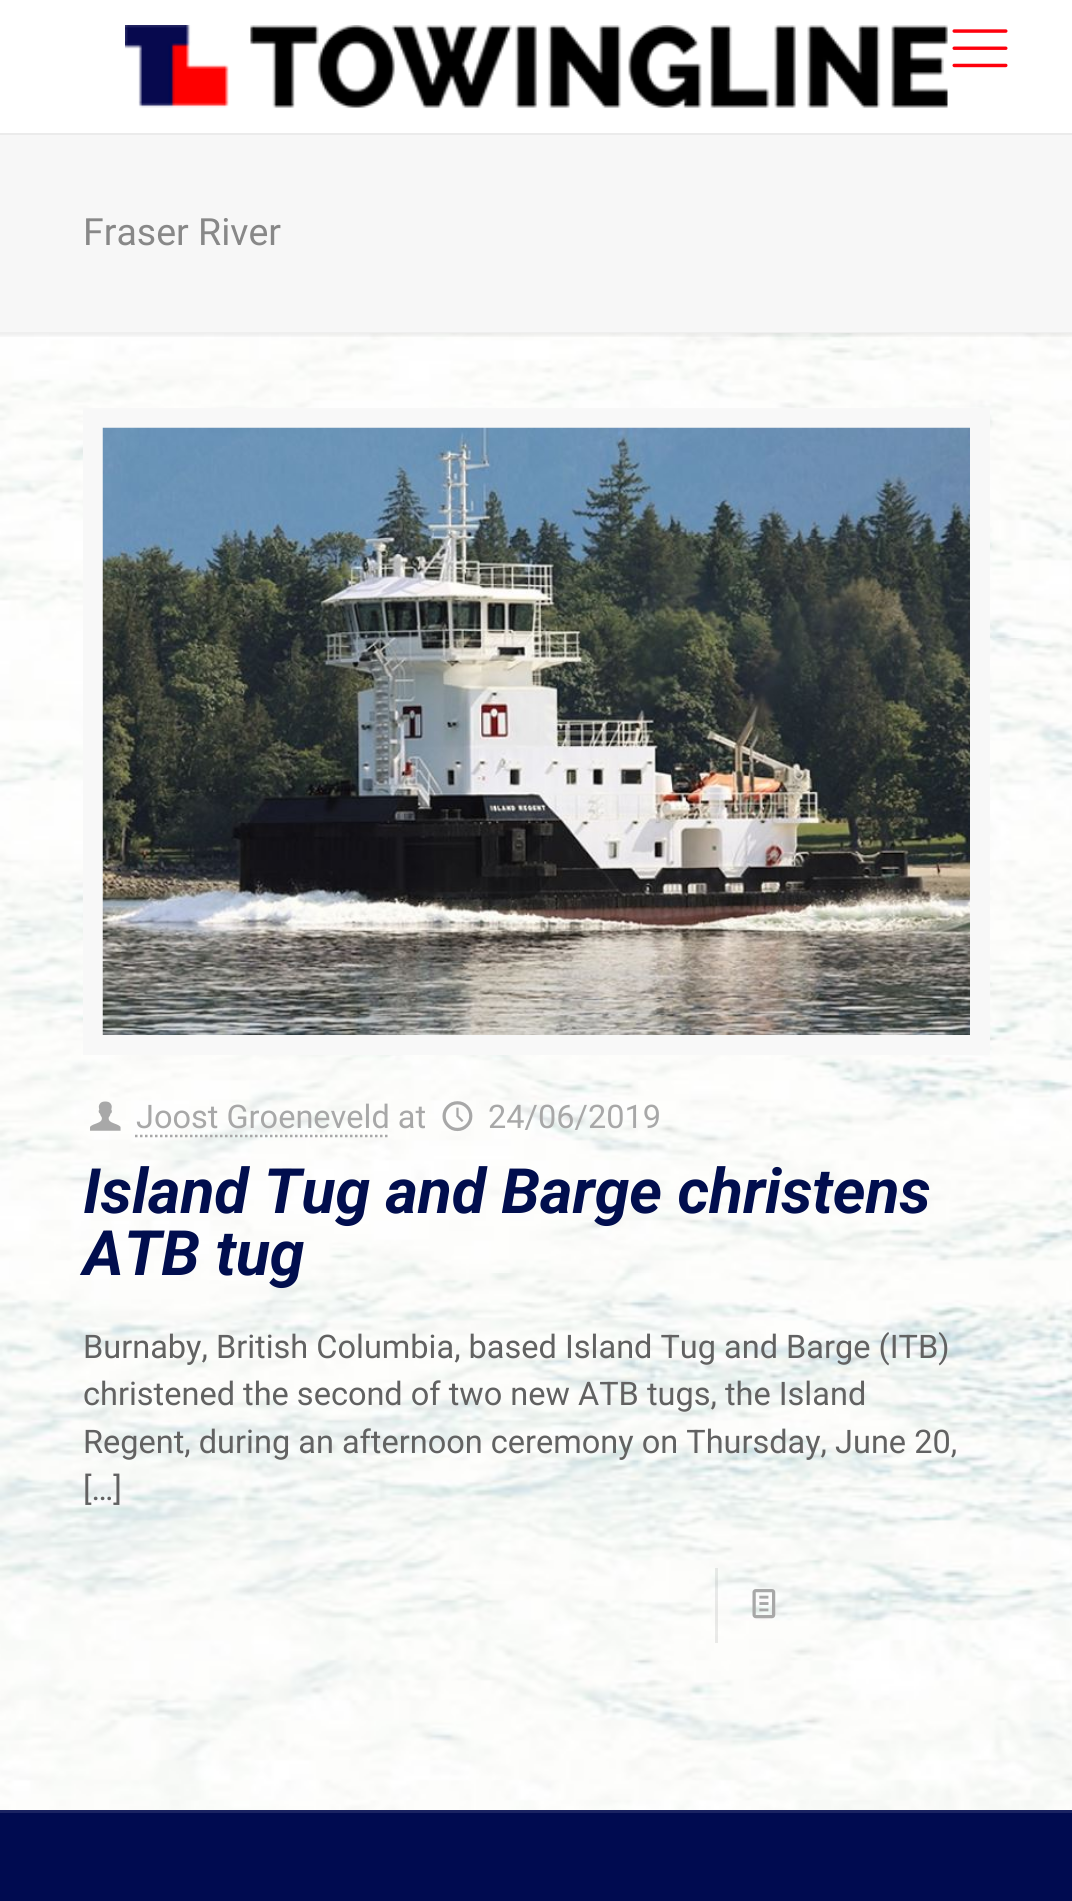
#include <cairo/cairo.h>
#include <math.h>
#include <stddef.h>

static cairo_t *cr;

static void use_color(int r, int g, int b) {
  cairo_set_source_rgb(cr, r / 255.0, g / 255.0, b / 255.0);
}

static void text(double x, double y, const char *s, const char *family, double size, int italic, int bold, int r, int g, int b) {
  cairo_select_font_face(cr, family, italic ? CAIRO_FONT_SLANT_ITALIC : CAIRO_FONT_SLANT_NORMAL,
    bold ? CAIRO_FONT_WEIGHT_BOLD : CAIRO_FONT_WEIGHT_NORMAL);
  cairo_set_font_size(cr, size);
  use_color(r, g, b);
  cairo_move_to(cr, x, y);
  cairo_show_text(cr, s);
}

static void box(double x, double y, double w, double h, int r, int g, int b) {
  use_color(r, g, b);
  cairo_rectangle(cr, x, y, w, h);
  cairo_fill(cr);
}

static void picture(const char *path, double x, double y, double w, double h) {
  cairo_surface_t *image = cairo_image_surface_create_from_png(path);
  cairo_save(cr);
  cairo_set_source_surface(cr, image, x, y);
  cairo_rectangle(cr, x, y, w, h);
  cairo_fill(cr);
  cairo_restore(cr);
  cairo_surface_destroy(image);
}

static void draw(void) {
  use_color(255, 255, 255);
  cairo_paint(cr);
  picture("img_01.png", 0, 333, 1072, 1477);
  cairo_set_source_rgba(cr, 0, 0, 0, 0.08);
  cairo_rectangle(cr, 0, 133, 1072, 2);
  cairo_fill(cr);
  picture("img_02.png", 125, 25, 823, 83);
  picture("img_03.png", 952, 29, 56, 39);
  box(0, 135, 1072, 198, 247, 247, 247);
  picture("img_04.png", 0, 332, 1072, 5);
  cairo_rectangle(cr, 93, 418, 887, 627);
  use_color(248, 248, 248);
  cairo_set_line_width(cr, 20);
  cairo_stroke(cr);
  picture("img_05.png", 102, 427, 868, 608);
  picture("img_06.png", 90, 1101, 31, 30);
  cairo_new_path(cr);
  cairo_move_to(cr, 135, 1136);
  cairo_line_to(cr, 390, 1136);
  use_color(168, 168, 168);
  cairo_set_line_width(cr, 2.5);
  cairo_set_dash(cr, (double[]){2.5, 2.5}, 2, 0);
  cairo_stroke(cr);
  picture("img_07.png", 442, 1101, 31, 31);
  cairo_set_source_rgba(cr, 0, 0, 0, 0.08);
  cairo_rectangle(cr, 715, 1568, 3, 75);
  cairo_fill(cr);
  picture("img_08.png", 752, 1589, 24, 30);
  box(0, 1813, 1072, 88, 0, 11, 80);
  box(0, 1810, 1072, 3, 26, 35, 98);
  text(83, 245, "Fraser River", "Roboto", 37.5, 0, 0, 136, 136, 136);
  text(136, 1128, "Joost Groeneveld at", "Roboto", 32.5, 0, 0, 168, 168, 168);
  text(488, 1128, "24/06/2019", "Roboto", 32.5, 0, 0, 168, 168, 168);
  text(83, 1213, "Island Tug and Barge christens", "Roboto", 62.5, 1, 1, 1, 14, 78);
  text(83, 1275, "ATB tug", "Roboto", 62.5, 1, 1, 1, 14, 78);
  text(83, 1358, "Burnaby, British Columbia, based Island Tug and Barge (ITB)", "Roboto", 32.5, 0, 0, 98, 98, 98);
  text(83, 1405, "christened the second of two new ATB tugs, the Island", "Roboto", 32.5, 0, 0, 98, 98, 98);
  text(83, 1453, "Regent, during an afternoon ceremony on Thursday, June 20,", "Roboto", 32.5, 0, 0, 98, 98, 98);
  text(83, 1500, "[…]", "Roboto", 32.5, 0, 0, 98, 98, 98);
}

int main(void) {
  cairo_surface_t *surface = cairo_image_surface_create(CAIRO_FORMAT_RGB24, 1072, 1901);
  cr = cairo_create(surface);
  cairo_font_options_t *options = cairo_font_options_create();
  cairo_font_options_set_hint_metrics(options, CAIRO_HINT_METRICS_OFF);
  cairo_font_options_set_hint_style(options, CAIRO_HINT_STYLE_NONE);
  cairo_set_font_options(cr, options);
  cairo_set_miter_limit(cr, 4);
  draw();
  cairo_surface_write_to_png(surface, "out.png");
  cairo_font_options_destroy(options);
  cairo_destroy(cr);
  cairo_surface_destroy(surface);
  return 0;
}
